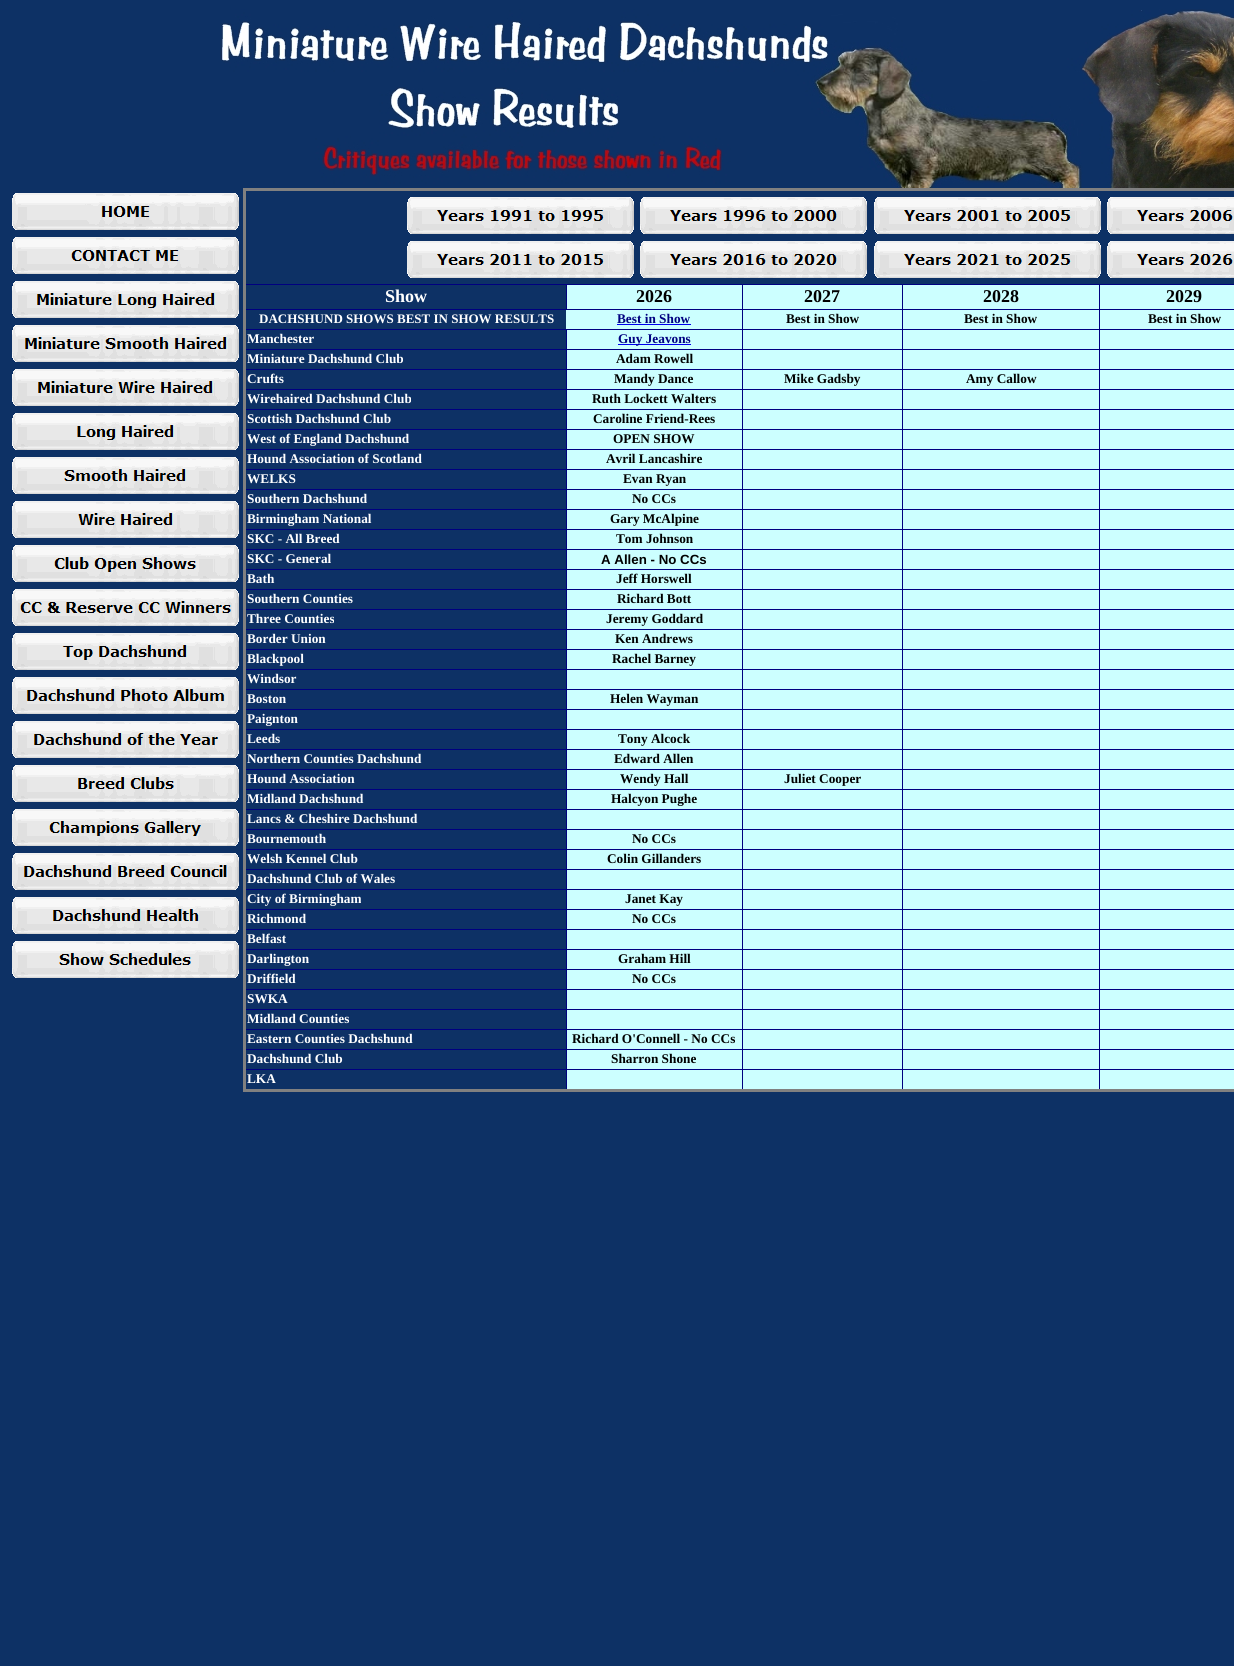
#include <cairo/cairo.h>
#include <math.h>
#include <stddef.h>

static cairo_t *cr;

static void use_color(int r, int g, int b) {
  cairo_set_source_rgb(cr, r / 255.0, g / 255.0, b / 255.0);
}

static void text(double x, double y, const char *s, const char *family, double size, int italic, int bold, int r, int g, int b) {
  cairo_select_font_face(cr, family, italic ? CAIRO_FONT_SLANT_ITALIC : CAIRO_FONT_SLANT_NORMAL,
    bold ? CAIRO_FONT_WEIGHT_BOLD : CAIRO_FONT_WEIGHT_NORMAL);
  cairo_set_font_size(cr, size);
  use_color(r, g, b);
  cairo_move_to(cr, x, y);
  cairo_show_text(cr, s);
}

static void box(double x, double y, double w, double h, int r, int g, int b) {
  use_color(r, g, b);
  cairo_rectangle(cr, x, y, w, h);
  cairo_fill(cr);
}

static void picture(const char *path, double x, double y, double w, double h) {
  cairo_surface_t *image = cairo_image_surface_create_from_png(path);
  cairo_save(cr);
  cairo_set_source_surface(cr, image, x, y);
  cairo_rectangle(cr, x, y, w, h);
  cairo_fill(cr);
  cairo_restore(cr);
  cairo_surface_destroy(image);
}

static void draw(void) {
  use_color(13, 49, 101);
  cairo_paint(cr);
  picture("img_01.png", 220, 9, 1014, 179);
  picture("img_02.png", 12, 193, 227, 37);
  picture("img_03.png", 12, 237, 227, 37);
  picture("img_04.png", 12, 281, 227, 37);
  picture("img_05.png", 12, 325, 227, 37);
  picture("img_06.png", 12, 369, 227, 37);
  picture("img_07.png", 12, 413, 227, 37);
  picture("img_08.png", 12, 457, 227, 37);
  picture("img_09.png", 12, 501, 227, 37);
  picture("img_10.png", 12, 545, 227, 37);
  picture("img_11.png", 12, 589, 227, 37);
  picture("img_12.png", 12, 633, 227, 37);
  picture("img_13.png", 12, 677, 227, 37);
  picture("img_14.png", 12, 721, 227, 37);
  picture("img_15.png", 12, 765, 227, 37);
  picture("img_16.png", 12, 809, 227, 37);
  picture("img_17.png", 12, 853, 227, 37);
  picture("img_18.png", 12, 897, 227, 37);
  picture("img_19.png", 12, 941, 227, 37);
  box(243, 188, 991, 3, 128, 128, 128);
  box(566, 1069, 1, 22, 0, 0, 128);
  box(742, 1069, 1, 22, 0, 0, 128);
  box(902, 1069, 1, 22, 0, 0, 128);
  box(1099, 1069, 1, 22, 0, 0, 128);
  box(243, 1089, 991, 3, 128, 128, 128);
  box(244, 284, 990, 1, 0, 0, 128);
  box(244, 309, 990, 1, 0, 0, 128);
  box(244, 329, 323, 1, 0, 0, 128);
  box(244, 689, 990, 1, 0, 0, 128);
  box(1099, 1069, 135, 1, 0, 0, 128);
  box(1099, 1049, 1, 21, 0, 0, 128);
  box(1099, 1049, 135, 1, 0, 0, 128);
  box(1099, 1029, 1, 21, 0, 0, 128);
  box(1099, 1029, 135, 1, 0, 0, 128);
  box(1099, 1009, 1, 21, 0, 0, 128);
  box(1099, 1009, 135, 1, 0, 0, 128);
  box(1099, 989, 1, 21, 0, 0, 128);
  box(1099, 989, 135, 1, 0, 0, 128);
  box(1099, 969, 1, 21, 0, 0, 128);
  box(1099, 969, 135, 1, 0, 0, 128);
  box(1099, 949, 1, 21, 0, 0, 128);
  box(1099, 949, 135, 1, 0, 0, 128);
  box(1099, 929, 1, 21, 0, 0, 128);
  box(1099, 929, 135, 1, 0, 0, 128);
  box(1099, 909, 1, 21, 0, 0, 128);
  box(1099, 909, 135, 1, 0, 0, 128);
  box(1099, 889, 1, 21, 0, 0, 128);
  box(1099, 889, 135, 1, 0, 0, 128);
  box(1099, 869, 1, 21, 0, 0, 128);
  box(1099, 869, 135, 1, 0, 0, 128);
  box(1099, 849, 1, 21, 0, 0, 128);
  box(1099, 849, 135, 1, 0, 0, 128);
  box(1099, 829, 1, 21, 0, 0, 128);
  box(1099, 829, 135, 1, 0, 0, 128);
  box(1099, 809, 1, 21, 0, 0, 128);
  box(1099, 809, 135, 1, 0, 0, 128);
  box(1099, 789, 1, 21, 0, 0, 128);
  box(1099, 789, 135, 1, 0, 0, 128);
  box(1099, 769, 1, 21, 0, 0, 128);
  box(1099, 769, 135, 1, 0, 0, 128);
  box(1099, 749, 1, 21, 0, 0, 128);
  box(1099, 749, 135, 1, 0, 0, 128);
  box(1099, 729, 1, 21, 0, 0, 128);
  box(1099, 729, 135, 1, 0, 0, 128);
  box(1099, 709, 1, 21, 0, 0, 128);
  box(1099, 709, 135, 1, 0, 0, 128);
  box(1099, 669, 1, 41, 0, 0, 128);
  box(1099, 669, 135, 1, 0, 0, 128);
  box(1099, 649, 1, 21, 0, 0, 128);
  box(1099, 649, 135, 1, 0, 0, 128);
  box(1099, 629, 1, 21, 0, 0, 128);
  box(1099, 629, 135, 1, 0, 0, 128);
  box(1099, 609, 1, 21, 0, 0, 128);
  box(1099, 609, 135, 1, 0, 0, 128);
  box(1099, 589, 1, 21, 0, 0, 128);
  box(1099, 589, 135, 1, 0, 0, 128);
  box(1099, 569, 1, 21, 0, 0, 128);
  box(1099, 569, 135, 1, 0, 0, 128);
  box(1099, 549, 1, 21, 0, 0, 128);
  box(1099, 549, 135, 1, 0, 0, 128);
  box(1099, 529, 1, 21, 0, 0, 128);
  box(1099, 529, 135, 1, 0, 0, 128);
  box(1099, 509, 1, 21, 0, 0, 128);
  box(1099, 509, 135, 1, 0, 0, 128);
  box(1099, 489, 1, 21, 0, 0, 128);
  box(1099, 489, 135, 1, 0, 0, 128);
  box(1099, 469, 1, 21, 0, 0, 128);
  box(1099, 469, 135, 1, 0, 0, 128);
  box(1099, 449, 1, 21, 0, 0, 128);
  box(1099, 449, 135, 1, 0, 0, 128);
  box(1099, 429, 1, 21, 0, 0, 128);
  box(1099, 429, 135, 1, 0, 0, 128);
  box(1099, 409, 1, 21, 0, 0, 128);
  box(1099, 409, 135, 1, 0, 0, 128);
  box(1099, 389, 1, 21, 0, 0, 128);
  box(1099, 389, 135, 1, 0, 0, 128);
  box(1099, 369, 1, 21, 0, 0, 128);
  box(1099, 369, 135, 1, 0, 0, 128);
  box(1099, 349, 1, 21, 0, 0, 128);
  box(1099, 349, 135, 1, 0, 0, 128);
  box(1099, 329, 1, 21, 0, 0, 128);
  box(902, 1069, 198, 1, 0, 0, 128);
  box(902, 1049, 1, 21, 0, 0, 128);
  box(902, 1049, 198, 1, 0, 0, 128);
  box(902, 1029, 1, 21, 0, 0, 128);
  box(902, 1029, 198, 1, 0, 0, 128);
  box(902, 1009, 1, 21, 0, 0, 128);
  box(902, 1009, 198, 1, 0, 0, 128);
  box(902, 989, 1, 21, 0, 0, 128);
  box(902, 989, 198, 1, 0, 0, 128);
  box(902, 969, 1, 21, 0, 0, 128);
  box(902, 969, 198, 1, 0, 0, 128);
  box(902, 949, 1, 21, 0, 0, 128);
  box(902, 949, 198, 1, 0, 0, 128);
  box(902, 929, 1, 21, 0, 0, 128);
  box(902, 929, 198, 1, 0, 0, 128);
  box(902, 909, 1, 21, 0, 0, 128);
  box(902, 909, 198, 1, 0, 0, 128);
  box(902, 889, 1, 21, 0, 0, 128);
  box(902, 889, 198, 1, 0, 0, 128);
  box(902, 869, 1, 21, 0, 0, 128);
  box(902, 869, 198, 1, 0, 0, 128);
  box(902, 849, 1, 21, 0, 0, 128);
  box(902, 849, 198, 1, 0, 0, 128);
  box(902, 829, 1, 21, 0, 0, 128);
  box(902, 829, 198, 1, 0, 0, 128);
  box(902, 809, 1, 21, 0, 0, 128);
  box(902, 809, 198, 1, 0, 0, 128);
  box(902, 789, 1, 21, 0, 0, 128);
  box(902, 789, 198, 1, 0, 0, 128);
  box(902, 769, 1, 21, 0, 0, 128);
  box(902, 769, 198, 1, 0, 0, 128);
  box(902, 749, 1, 21, 0, 0, 128);
  box(902, 749, 198, 1, 0, 0, 128);
  box(902, 729, 1, 21, 0, 0, 128);
  box(902, 729, 198, 1, 0, 0, 128);
  box(902, 709, 1, 21, 0, 0, 128);
  box(902, 709, 198, 1, 0, 0, 128);
  box(902, 669, 1, 41, 0, 0, 128);
  box(902, 669, 198, 1, 0, 0, 128);
  box(902, 649, 1, 21, 0, 0, 128);
  box(902, 649, 198, 1, 0, 0, 128);
  box(902, 629, 1, 21, 0, 0, 128);
  box(902, 629, 198, 1, 0, 0, 128);
  box(902, 609, 1, 21, 0, 0, 128);
  box(902, 609, 198, 1, 0, 0, 128);
  box(902, 589, 1, 21, 0, 0, 128);
  box(902, 589, 198, 1, 0, 0, 128);
  box(902, 569, 1, 21, 0, 0, 128);
  box(902, 569, 198, 1, 0, 0, 128);
  box(902, 549, 1, 21, 0, 0, 128);
  box(902, 549, 198, 1, 0, 0, 128);
  box(902, 529, 1, 21, 0, 0, 128);
  box(902, 529, 198, 1, 0, 0, 128);
  box(902, 509, 1, 21, 0, 0, 128);
  box(902, 509, 198, 1, 0, 0, 128);
  box(902, 489, 1, 21, 0, 0, 128);
  box(902, 489, 198, 1, 0, 0, 128);
  box(902, 469, 1, 21, 0, 0, 128);
  box(902, 469, 198, 1, 0, 0, 128);
  box(902, 449, 1, 21, 0, 0, 128);
  box(902, 449, 198, 1, 0, 0, 128);
  box(902, 429, 1, 21, 0, 0, 128);
  box(902, 429, 198, 1, 0, 0, 128);
  box(902, 409, 1, 21, 0, 0, 128);
  box(902, 409, 198, 1, 0, 0, 128);
  box(902, 389, 1, 21, 0, 0, 128);
  box(902, 389, 198, 1, 0, 0, 128);
  box(902, 369, 1, 21, 0, 0, 128);
  box(902, 369, 198, 1, 0, 0, 128);
  box(902, 349, 1, 21, 0, 0, 128);
  box(902, 349, 198, 1, 0, 0, 128);
  box(902, 329, 1, 21, 0, 0, 128);
  box(742, 1069, 161, 1, 0, 0, 128);
  box(742, 1049, 1, 21, 0, 0, 128);
  box(742, 1049, 161, 1, 0, 0, 128);
  box(742, 1029, 1, 21, 0, 0, 128);
  box(742, 1029, 161, 1, 0, 0, 128);
  box(742, 1009, 1, 21, 0, 0, 128);
  box(742, 1009, 161, 1, 0, 0, 128);
  box(742, 989, 1, 21, 0, 0, 128);
  box(742, 989, 161, 1, 0, 0, 128);
  box(742, 969, 1, 21, 0, 0, 128);
  box(742, 969, 161, 1, 0, 0, 128);
  box(742, 949, 1, 21, 0, 0, 128);
  box(742, 949, 161, 1, 0, 0, 128);
  box(742, 929, 1, 21, 0, 0, 128);
  box(742, 929, 161, 1, 0, 0, 128);
  box(742, 909, 1, 21, 0, 0, 128);
  box(742, 909, 161, 1, 0, 0, 128);
  box(742, 889, 1, 21, 0, 0, 128);
  box(742, 889, 161, 1, 0, 0, 128);
  box(742, 869, 1, 21, 0, 0, 128);
  box(742, 869, 161, 1, 0, 0, 128);
  box(742, 849, 1, 21, 0, 0, 128);
  box(742, 849, 161, 1, 0, 0, 128);
  box(742, 829, 1, 21, 0, 0, 128);
  box(742, 829, 161, 1, 0, 0, 128);
  box(742, 809, 1, 21, 0, 0, 128);
  box(742, 809, 161, 1, 0, 0, 128);
  box(742, 789, 1, 21, 0, 0, 128);
  box(742, 789, 161, 1, 0, 0, 128);
  box(742, 769, 1, 21, 0, 0, 128);
  box(742, 769, 161, 1, 0, 0, 128);
  box(742, 749, 1, 21, 0, 0, 128);
  box(742, 749, 161, 1, 0, 0, 128);
  box(742, 729, 1, 21, 0, 0, 128);
  box(742, 729, 161, 1, 0, 0, 128);
  box(742, 709, 1, 21, 0, 0, 128);
  box(742, 709, 161, 1, 0, 0, 128);
  box(742, 669, 1, 41, 0, 0, 128);
  box(742, 669, 161, 1, 0, 0, 128);
  box(742, 649, 1, 21, 0, 0, 128);
  box(742, 649, 161, 1, 0, 0, 128);
  box(742, 629, 1, 21, 0, 0, 128);
  box(742, 629, 161, 1, 0, 0, 128);
  box(742, 609, 1, 21, 0, 0, 128);
  box(742, 609, 161, 1, 0, 0, 128);
  box(742, 589, 1, 21, 0, 0, 128);
  box(742, 589, 161, 1, 0, 0, 128);
  box(742, 569, 1, 21, 0, 0, 128);
  box(742, 569, 161, 1, 0, 0, 128);
  box(742, 549, 1, 21, 0, 0, 128);
  box(742, 549, 161, 1, 0, 0, 128);
  box(742, 529, 1, 21, 0, 0, 128);
  box(742, 529, 161, 1, 0, 0, 128);
  box(742, 509, 1, 21, 0, 0, 128);
  box(742, 509, 161, 1, 0, 0, 128);
  box(742, 489, 1, 21, 0, 0, 128);
  box(742, 489, 161, 1, 0, 0, 128);
  box(742, 469, 1, 21, 0, 0, 128);
  box(742, 469, 161, 1, 0, 0, 128);
  box(742, 449, 1, 21, 0, 0, 128);
  box(742, 449, 161, 1, 0, 0, 128);
  box(742, 429, 1, 21, 0, 0, 128);
  box(742, 429, 161, 1, 0, 0, 128);
  box(742, 409, 1, 21, 0, 0, 128);
  box(742, 409, 161, 1, 0, 0, 128);
  box(742, 389, 1, 21, 0, 0, 128);
  box(742, 389, 161, 1, 0, 0, 128);
  box(742, 369, 1, 21, 0, 0, 128);
  box(742, 369, 161, 1, 0, 0, 128);
  box(742, 349, 1, 21, 0, 0, 128);
  box(742, 349, 161, 1, 0, 0, 128);
  box(742, 329, 1, 21, 0, 0, 128);
  box(244, 489, 323, 1, 0, 0, 128);
  box(566, 1069, 177, 1, 0, 0, 128);
  box(566, 1049, 1, 21, 0, 0, 128);
  box(566, 1049, 177, 1, 0, 0, 128);
  box(566, 1029, 1, 21, 0, 0, 128);
  box(566, 1029, 177, 1, 0, 0, 128);
  box(566, 1009, 1, 21, 0, 0, 128);
  box(566, 1009, 177, 1, 0, 0, 128);
  box(566, 989, 1, 21, 0, 0, 128);
  box(566, 989, 177, 1, 0, 0, 128);
  box(566, 969, 1, 21, 0, 0, 128);
  box(566, 969, 177, 1, 0, 0, 128);
  box(566, 949, 1, 21, 0, 0, 128);
  box(566, 949, 177, 1, 0, 0, 128);
  box(566, 929, 1, 21, 0, 0, 128);
  box(566, 929, 177, 1, 0, 0, 128);
  box(566, 909, 1, 21, 0, 0, 128);
  box(566, 909, 177, 1, 0, 0, 128);
  box(566, 889, 1, 21, 0, 0, 128);
  box(566, 889, 177, 1, 0, 0, 128);
  box(566, 869, 1, 21, 0, 0, 128);
  box(566, 869, 177, 1, 0, 0, 128);
  box(566, 849, 1, 21, 0, 0, 128);
  box(566, 849, 177, 1, 0, 0, 128);
  box(566, 829, 1, 21, 0, 0, 128);
  box(566, 829, 177, 1, 0, 0, 128);
  box(566, 809, 1, 21, 0, 0, 128);
  box(566, 809, 177, 1, 0, 0, 128);
  box(566, 789, 1, 21, 0, 0, 128);
  box(566, 789, 177, 1, 0, 0, 128);
  box(566, 769, 1, 21, 0, 0, 128);
  box(566, 769, 177, 1, 0, 0, 128);
  box(566, 749, 1, 21, 0, 0, 128);
  box(566, 749, 177, 1, 0, 0, 128);
  box(566, 729, 1, 21, 0, 0, 128);
  box(566, 729, 177, 1, 0, 0, 128);
  box(566, 709, 1, 21, 0, 0, 128);
  box(566, 709, 177, 1, 0, 0, 128);
  box(566, 669, 1, 41, 0, 0, 128);
  box(566, 669, 177, 1, 0, 0, 128);
  box(566, 649, 1, 21, 0, 0, 128);
  box(566, 649, 177, 1, 0, 0, 128);
  box(566, 629, 1, 21, 0, 0, 128);
  box(566, 629, 177, 1, 0, 0, 128);
  box(566, 609, 1, 21, 0, 0, 128);
  box(566, 609, 177, 1, 0, 0, 128);
  box(566, 589, 1, 21, 0, 0, 128);
  box(566, 589, 177, 1, 0, 0, 128);
  box(566, 569, 1, 21, 0, 0, 128);
  box(566, 569, 177, 1, 0, 0, 128);
  box(566, 549, 1, 21, 0, 0, 128);
  box(566, 549, 177, 1, 0, 0, 128);
  box(566, 529, 1, 21, 0, 0, 128);
  box(566, 529, 177, 1, 0, 0, 128);
  box(566, 509, 1, 21, 0, 0, 128);
  box(566, 509, 177, 1, 0, 0, 128);
  box(566, 489, 1, 21, 0, 0, 128);
  box(566, 489, 177, 1, 0, 0, 128);
  box(566, 469, 1, 21, 0, 0, 128);
  box(566, 469, 177, 1, 0, 0, 128);
  box(566, 449, 1, 21, 0, 0, 128);
  box(566, 449, 177, 1, 0, 0, 128);
  box(566, 429, 1, 21, 0, 0, 128);
  box(566, 429, 177, 1, 0, 0, 128);
  box(566, 409, 1, 21, 0, 0, 128);
  box(566, 409, 177, 1, 0, 0, 128);
  box(566, 389, 1, 21, 0, 0, 128);
  box(566, 389, 177, 1, 0, 0, 128);
  box(566, 369, 1, 21, 0, 0, 128);
  box(566, 369, 177, 1, 0, 0, 128);
  box(566, 349, 1, 21, 0, 0, 128);
  box(566, 349, 177, 1, 0, 0, 128);
  box(566, 329, 1, 21, 0, 0, 128);
  box(244, 349, 323, 1, 0, 0, 128);
  box(244, 369, 323, 1, 0, 0, 128);
  box(244, 389, 323, 1, 0, 0, 128);
  box(244, 409, 323, 1, 0, 0, 128);
  box(244, 429, 323, 1, 0, 0, 128);
  box(244, 449, 323, 1, 0, 0, 128);
  box(244, 469, 323, 1, 0, 0, 128);
  box(244, 509, 323, 1, 0, 0, 128);
  box(244, 529, 323, 1, 0, 0, 128);
  box(244, 549, 323, 1, 0, 0, 128);
  box(244, 569, 323, 1, 0, 0, 128);
  box(244, 589, 323, 1, 0, 0, 128);
  box(244, 609, 323, 1, 0, 0, 128);
  box(244, 629, 323, 1, 0, 0, 128);
  box(244, 649, 323, 1, 0, 0, 128);
  box(244, 669, 323, 1, 0, 0, 128);
  box(244, 709, 323, 1, 0, 0, 128);
  box(244, 729, 323, 1, 0, 0, 128);
  box(244, 749, 323, 1, 0, 0, 128);
  box(244, 769, 323, 1, 0, 0, 128);
  box(244, 789, 323, 1, 0, 0, 128);
  box(244, 809, 323, 1, 0, 0, 128);
  box(244, 829, 323, 1, 0, 0, 128);
  box(244, 849, 323, 1, 0, 0, 128);
  box(244, 869, 323, 1, 0, 0, 128);
  box(244, 889, 323, 1, 0, 0, 128);
  box(244, 909, 323, 1, 0, 0, 128);
  box(244, 929, 323, 1, 0, 0, 128);
  box(244, 949, 323, 1, 0, 0, 128);
  box(244, 969, 323, 1, 0, 0, 128);
  box(244, 989, 323, 1, 0, 0, 128);
  box(244, 1009, 323, 1, 0, 0, 128);
  box(244, 1029, 323, 1, 0, 0, 128);
  box(244, 1049, 323, 1, 0, 0, 128);
  box(244, 1069, 323, 1, 0, 0, 128);
  box(243, 188, 3, 904, 128, 128, 128);
  picture("img_20.png", 407, 197, 227, 37);
  picture("img_21.png", 640, 197, 227, 37);
  picture("img_22.png", 874, 197, 227, 37);
  picture("img_23.png", 1107, 197, 127, 37);
  picture("img_24.png", 407, 241, 227, 37);
  picture("img_25.png", 640, 241, 227, 37);
  picture("img_26.png", 874, 241, 227, 37);
  picture("img_27.png", 1107, 241, 127, 37);
  box(566, 284, 1, 26, 0, 0, 128);
  box(567, 285, 175, 24, 204, 255, 255);
  box(1099, 329, 135, 1, 0, 0, 128);
  box(1099, 309, 1, 21, 0, 0, 128);
  box(902, 329, 198, 1, 0, 0, 128);
  box(902, 309, 1, 21, 0, 0, 128);
  box(742, 329, 161, 1, 0, 0, 128);
  box(742, 309, 1, 21, 0, 0, 128);
  box(742, 284, 1, 26, 0, 0, 128);
  box(743, 285, 159, 24, 204, 255, 255);
  box(902, 284, 1, 26, 0, 0, 128);
  box(903, 285, 196, 24, 204, 255, 255);
  box(1099, 284, 1, 26, 0, 0, 128);
  box(1100, 285, 134, 24, 204, 255, 255);
  box(566, 310, 176, 19, 204, 255, 255);
  box(566, 329, 177, 1, 0, 0, 128);
  box(617, 324, 74, 1, 0, 0, 238);
  box(743, 310, 159, 19, 204, 255, 255);
  box(903, 310, 196, 19, 204, 255, 255);
  box(1100, 310, 134, 19, 204, 255, 255);
  box(567, 330, 175, 19, 204, 255, 255);
  box(618, 344, 73, 1, 0, 0, 238);
  box(743, 330, 159, 19, 204, 255, 255);
  box(903, 330, 196, 19, 204, 255, 255);
  box(1100, 330, 134, 19, 204, 255, 255);
  box(567, 350, 175, 19, 204, 255, 255);
  box(743, 350, 159, 19, 204, 255, 255);
  box(903, 350, 196, 19, 204, 255, 255);
  box(1100, 350, 134, 19, 204, 255, 255);
  box(567, 370, 175, 19, 204, 255, 255);
  box(743, 370, 159, 19, 204, 255, 255);
  box(903, 370, 196, 19, 204, 255, 255);
  box(1100, 370, 134, 19, 204, 255, 255);
  box(567, 390, 175, 19, 204, 255, 255);
  box(743, 390, 159, 19, 204, 255, 255);
  box(903, 390, 196, 19, 204, 255, 255);
  box(1100, 390, 134, 19, 204, 255, 255);
  box(567, 410, 175, 19, 204, 255, 255);
  box(743, 410, 159, 19, 204, 255, 255);
  box(903, 410, 196, 19, 204, 255, 255);
  box(1100, 410, 134, 19, 204, 255, 255);
  box(567, 430, 175, 19, 204, 255, 255);
  box(743, 430, 159, 19, 204, 255, 255);
  box(903, 430, 196, 19, 204, 255, 255);
  box(1100, 430, 134, 19, 204, 255, 255);
  box(567, 450, 175, 19, 204, 255, 255);
  box(743, 450, 159, 19, 204, 255, 255);
  box(903, 450, 196, 19, 204, 255, 255);
  box(1100, 450, 134, 19, 204, 255, 255);
  box(567, 470, 175, 19, 204, 255, 255);
  box(743, 470, 159, 19, 204, 255, 255);
  box(903, 470, 196, 19, 204, 255, 255);
  box(1100, 470, 134, 19, 204, 255, 255);
  box(567, 490, 175, 19, 204, 255, 255);
  box(743, 490, 159, 19, 204, 255, 255);
  box(903, 490, 196, 19, 204, 255, 255);
  box(1100, 490, 134, 19, 204, 255, 255);
  box(567, 510, 175, 19, 204, 255, 255);
  box(743, 510, 159, 19, 204, 255, 255);
  box(903, 510, 196, 19, 204, 255, 255);
  box(1100, 510, 134, 19, 204, 255, 255);
  box(567, 530, 175, 19, 204, 255, 255);
  box(743, 530, 159, 19, 204, 255, 255);
  box(903, 530, 196, 19, 204, 255, 255);
  box(1100, 530, 134, 19, 204, 255, 255);
  box(567, 550, 175, 19, 204, 255, 255);
  box(743, 550, 159, 19, 204, 255, 255);
  box(903, 550, 196, 19, 204, 255, 255);
  box(1100, 550, 134, 19, 204, 255, 255);
  box(567, 570, 175, 19, 204, 255, 255);
  box(743, 570, 159, 19, 204, 255, 255);
  box(903, 570, 196, 19, 204, 255, 255);
  box(1100, 570, 134, 19, 204, 255, 255);
  box(567, 590, 175, 19, 204, 255, 255);
  box(743, 590, 159, 19, 204, 255, 255);
  box(903, 590, 196, 19, 204, 255, 255);
  box(1100, 590, 134, 19, 204, 255, 255);
  box(567, 610, 175, 19, 204, 255, 255);
  box(743, 610, 159, 19, 204, 255, 255);
  box(903, 610, 196, 19, 204, 255, 255);
  box(1100, 610, 134, 19, 204, 255, 255);
  box(567, 630, 175, 19, 204, 255, 255);
  box(743, 630, 159, 19, 204, 255, 255);
  box(903, 630, 196, 19, 204, 255, 255);
  box(1100, 630, 134, 19, 204, 255, 255);
  box(567, 650, 175, 19, 204, 255, 255);
  box(743, 650, 159, 19, 204, 255, 255);
  box(903, 650, 196, 19, 204, 255, 255);
  box(1100, 650, 134, 19, 204, 255, 255);
  box(567, 670, 175, 19, 204, 255, 255);
  box(743, 670, 159, 19, 204, 255, 255);
  box(903, 670, 196, 19, 204, 255, 255);
  box(1100, 670, 134, 19, 204, 255, 255);
  box(743, 690, 159, 19, 204, 255, 255);
  box(903, 690, 196, 19, 204, 255, 255);
  box(1100, 690, 134, 19, 204, 255, 255);
  box(567, 690, 175, 19, 204, 255, 255);
  box(567, 710, 175, 19, 204, 255, 255);
  box(743, 710, 159, 19, 204, 255, 255);
  box(903, 710, 196, 19, 204, 255, 255);
  box(1100, 710, 134, 19, 204, 255, 255);
  box(567, 730, 175, 19, 204, 255, 255);
  box(743, 730, 159, 19, 204, 255, 255);
  box(903, 730, 196, 19, 204, 255, 255);
  box(1100, 730, 134, 19, 204, 255, 255);
  box(567, 750, 175, 19, 204, 255, 255);
  box(743, 750, 159, 19, 204, 255, 255);
  box(903, 750, 196, 19, 204, 255, 255);
  box(1100, 750, 134, 19, 204, 255, 255);
  box(567, 770, 175, 19, 204, 255, 255);
  box(743, 770, 159, 19, 204, 255, 255);
  box(903, 770, 196, 19, 204, 255, 255);
  box(1100, 770, 134, 19, 204, 255, 255);
  box(567, 790, 175, 19, 204, 255, 255);
  box(743, 790, 159, 19, 204, 255, 255);
  box(903, 790, 196, 19, 204, 255, 255);
  box(1100, 790, 134, 19, 204, 255, 255);
  box(567, 810, 175, 19, 204, 255, 255);
  box(743, 810, 159, 19, 204, 255, 255);
  box(903, 810, 196, 19, 204, 255, 255);
  box(1100, 810, 134, 19, 204, 255, 255);
  box(567, 830, 175, 19, 204, 255, 255);
  box(743, 830, 159, 19, 204, 255, 255);
  box(903, 830, 196, 19, 204, 255, 255);
  box(1100, 830, 134, 19, 204, 255, 255);
  box(567, 850, 175, 19, 204, 255, 255);
  box(743, 850, 159, 19, 204, 255, 255);
  box(903, 850, 196, 19, 204, 255, 255);
  box(1100, 850, 134, 19, 204, 255, 255);
  box(567, 870, 175, 19, 204, 255, 255);
  box(743, 870, 159, 19, 204, 255, 255);
  box(903, 870, 196, 19, 204, 255, 255);
  box(1100, 870, 134, 19, 204, 255, 255);
  box(567, 890, 175, 19, 204, 255, 255);
  box(743, 890, 159, 19, 204, 255, 255);
  box(903, 890, 196, 19, 204, 255, 255);
  box(1100, 890, 134, 19, 204, 255, 255);
  box(567, 910, 175, 19, 204, 255, 255);
  box(743, 910, 159, 19, 204, 255, 255);
  box(903, 910, 196, 19, 204, 255, 255);
  box(1100, 910, 134, 19, 204, 255, 255);
  box(567, 930, 175, 19, 204, 255, 255);
  box(743, 930, 159, 19, 204, 255, 255);
  box(903, 930, 196, 19, 204, 255, 255);
  box(1100, 930, 134, 19, 204, 255, 255);
  box(567, 950, 175, 19, 204, 255, 255);
  box(743, 950, 159, 19, 204, 255, 255);
  box(903, 950, 196, 19, 204, 255, 255);
  box(1100, 950, 134, 19, 204, 255, 255);
  box(567, 970, 175, 19, 204, 255, 255);
  box(743, 970, 159, 19, 204, 255, 255);
  box(903, 970, 196, 19, 204, 255, 255);
  box(1100, 970, 134, 19, 204, 255, 255);
  box(567, 990, 175, 19, 204, 255, 255);
  box(743, 990, 159, 19, 204, 255, 255);
  box(903, 990, 196, 19, 204, 255, 255);
  box(1100, 990, 134, 19, 204, 255, 255);
  box(567, 1010, 175, 19, 204, 255, 255);
  box(743, 1010, 159, 19, 204, 255, 255);
  box(903, 1010, 196, 19, 204, 255, 255);
  box(1100, 1010, 134, 19, 204, 255, 255);
  box(567, 1030, 175, 19, 204, 255, 255);
  box(743, 1030, 159, 19, 204, 255, 255);
  box(903, 1030, 196, 19, 204, 255, 255);
  box(1100, 1030, 134, 19, 204, 255, 255);
  box(567, 1050, 175, 19, 204, 255, 255);
  box(743, 1050, 159, 19, 204, 255, 255);
  box(903, 1050, 196, 19, 204, 255, 255);
  box(1100, 1050, 134, 19, 204, 255, 255);
  box(567, 1070, 175, 19, 204, 255, 255);
  box(743, 1070, 159, 19, 204, 255, 255);
  box(903, 1070, 196, 19, 204, 255, 255);
  box(1100, 1070, 134, 19, 204, 255, 255);
  text(385, 302, "Show", "Liberation Serif", 18, 0, 1, 255, 255, 255);
  text(636, 302, "2026", "Liberation Serif", 18, 0, 1, 0, 0, 0);
  text(804, 302, "2027", "Liberation Serif", 18, 0, 1, 0, 0, 0);
  text(983, 302, "2028", "Liberation Serif", 18, 0, 1, 0, 0, 0);
  text(1166, 302, "2029", "Liberation Serif", 18, 0, 1, 0, 0, 0);
  text(259, 323, "DACHSHUND SHOWS BEST IN SHOW RESULTS", "Liberation Serif", 13, 0, 1, 255, 255, 255);
  text(617, 323, "Best in Show", "Liberation Serif", 13.3, 0, 1, 0, 0, 128);
  text(786, 323, "Best in Show", "Liberation Serif", 13.3, 0, 1, 0, 0, 0);
  text(964, 323, "Best in Show", "Liberation Serif", 13.3, 0, 1, 0, 0, 0);
  text(1148, 323, "Best in Show", "Liberation Serif", 13.3, 0, 1, 0, 0, 0);
  text(247, 343, "Manchester", "Liberation Serif", 13.3, 0, 1, 255, 255, 255);
  text(618, 343, "Guy Jeavons", "Liberation Serif", 13.3, 0, 1, 0, 0, 128);
  text(247, 363, "Miniature Dachshund Club", "Liberation Serif", 13.3, 0, 1, 255, 255, 255);
  text(616, 363, "Adam Rowell", "Liberation Serif", 13.3, 0, 1, 0, 0, 0);
  text(247, 383, "Crufts", "Liberation Serif", 13.3, 0, 1, 255, 255, 255);
  text(614, 383, "Mandy Dance", "Liberation Serif", 13.3, 0, 1, 0, 0, 0);
  text(784, 383, "Mike Gadsby", "Liberation Serif", 13.3, 0, 1, 0, 0, 0);
  text(966, 383, "Amy Callow", "Liberation Serif", 13.3, 0, 1, 0, 0, 0);
  text(247, 403, "Wirehaired Dachshund Club", "Liberation Serif", 13.3, 0, 1, 255, 255, 255);
  text(592, 403, "Ruth Lockett Walters", "Liberation Serif", 13.3, 0, 1, 0, 0, 0);
  text(247, 423, "Scottish Dachshund Club", "Liberation Serif", 13.3, 0, 1, 255, 255, 255);
  text(593, 423, "Caroline Friend-Rees", "Liberation Serif", 13.3, 0, 1, 0, 0, 0);
  text(247, 443, "West of England Dachshund", "Liberation Serif", 13.3, 0, 1, 255, 255, 255);
  text(613, 443, "OPEN SHOW", "Liberation Serif", 13.3, 0, 1, 0, 0, 0);
  text(247, 463, "Hound Association of Scotland", "Liberation Serif", 13.3, 0, 1, 255, 255, 255);
  text(606, 463, "Avril Lancashire", "Liberation Serif", 13.3, 0, 1, 0, 0, 0);
  text(247, 483, "WELKS", "Liberation Serif", 13.3, 0, 1, 255, 255, 255);
  text(623, 483, "Evan Ryan", "Liberation Serif", 13.3, 0, 1, 0, 0, 0);
  text(247, 503, "Southern Dachshund", "Liberation Serif", 13.3, 0, 1, 255, 255, 255);
  text(632, 503, "No CCs", "Liberation Serif", 13.3, 0, 1, 0, 0, 0);
  text(247, 523, "Birmingham National", "Liberation Serif", 13.3, 0, 1, 255, 255, 255);
  text(610, 523, "Gary McAlpine", "Liberation Serif", 13.3, 0, 1, 0, 0, 0);
  text(247, 543, "SKC - All Breed", "Liberation Serif", 13.3, 0, 1, 255, 255, 255);
  text(616, 543, "Tom Johnson", "Liberation Serif", 13.3, 0, 1, 0, 0, 0);
  text(247, 563, "SKC - General", "Liberation Serif", 13.3, 0, 1, 255, 255, 255);
  text(601, 564, "A Allen - No CCs", "Liberation Sans", 13.3, 0, 1, 0, 0, 0);
  text(247, 583, "Bath", "Liberation Serif", 13.3, 0, 1, 255, 255, 255);
  text(616, 583, "Jeff Horswell", "Liberation Serif", 13.3, 0, 1, 0, 0, 0);
  text(247, 603, "Southern Counties", "Liberation Serif", 13.3, 0, 1, 255, 255, 255);
  text(617, 603, "Richard Bott", "Liberation Serif", 13.3, 0, 1, 0, 0, 0);
  text(247, 623, "Three Counties", "Liberation Serif", 13.3, 0, 1, 255, 255, 255);
  text(606, 623, "Jeremy Goddard", "Liberation Serif", 13.3, 0, 1, 0, 0, 0);
  text(247, 643, "Border Union", "Liberation Serif", 13.3, 0, 1, 255, 255, 255);
  text(615, 643, "Ken Andrews", "Liberation Serif", 13.3, 0, 1, 0, 0, 0);
  text(247, 663, "Blackpool", "Liberation Serif", 13.3, 0, 1, 255, 255, 255);
  text(612, 663, "Rachel Barney", "Liberation Serif", 13.3, 0, 1, 0, 0, 0);
  text(247, 683, "Windsor", "Liberation Serif", 13.3, 0, 1, 255, 255, 255);
  text(247, 703, "Boston", "Liberation Serif", 13.3, 0, 1, 255, 255, 255);
  text(610, 703, "Helen Wayman", "Liberation Serif", 13.3, 0, 1, 0, 0, 0);
  text(247, 723, "Paignton", "Liberation Serif", 13.3, 0, 1, 255, 255, 255);
  text(247, 743, "Leeds", "Liberation Serif", 13.3, 0, 1, 255, 255, 255);
  text(618, 743, "Tony Alcock", "Liberation Serif", 13.3, 0, 1, 0, 0, 0);
  text(247, 763, "Northern Counties Dachshund", "Liberation Serif", 13.3, 0, 1, 255, 255, 255);
  text(614, 763, "Edward Allen", "Liberation Serif", 13.3, 0, 1, 0, 0, 0);
  text(247, 783, "Hound Association", "Liberation Serif", 13.3, 0, 1, 255, 255, 255);
  text(620, 783, "Wendy Hall", "Liberation Serif", 13.3, 0, 1, 0, 0, 0);
  text(784, 783, "Juliet Cooper", "Liberation Serif", 13.3, 0, 1, 0, 0, 0);
  text(247, 803, "Midland Dachshund", "Liberation Serif", 13.3, 0, 1, 255, 255, 255);
  text(611, 803, "Halcyon Pughe", "Liberation Serif", 13.3, 0, 1, 0, 0, 0);
  text(247, 823, "Lancs & Cheshire Dachshund", "Liberation Serif", 13.3, 0, 1, 255, 255, 255);
  text(247, 843, "Bournemouth", "Liberation Serif", 13.3, 0, 1, 255, 255, 255);
  text(632, 843, "No CCs", "Liberation Serif", 13.3, 0, 1, 0, 0, 0);
  text(247, 863, "Welsh Kennel Club", "Liberation Serif", 13.3, 0, 1, 255, 255, 255);
  text(607, 863, "Colin Gillanders", "Liberation Serif", 13.3, 0, 1, 0, 0, 0);
  text(247, 883, "Dachshund Club of Wales", "Liberation Serif", 13.3, 0, 1, 255, 255, 255);
  text(247, 903, "City of Birmingham", "Liberation Serif", 13.3, 0, 1, 255, 255, 255);
  text(625, 903, "Janet Kay", "Liberation Serif", 13.3, 0, 1, 0, 0, 0);
  text(247, 923, "Richmond", "Liberation Serif", 13.3, 0, 1, 255, 255, 255);
  text(632, 923, "No CCs", "Liberation Serif", 13.3, 0, 1, 0, 0, 0);
  text(247, 943, "Belfast", "Liberation Serif", 13.3, 0, 1, 255, 255, 255);
  text(247, 963, "Darlington", "Liberation Serif", 13.3, 0, 1, 255, 255, 255);
  text(618, 963, "Graham Hill", "Liberation Serif", 13.3, 0, 1, 0, 0, 0);
  text(247, 983, "Driffield", "Liberation Serif", 13.3, 0, 1, 255, 255, 255);
  text(632, 983, "No CCs", "Liberation Serif", 13.3, 0, 1, 0, 0, 0);
  text(247, 1003, "SWKA", "Liberation Serif", 13.3, 0, 1, 255, 255, 255);
  text(247, 1023, "Midland Counties", "Liberation Serif", 13.3, 0, 1, 255, 255, 255);
  text(247, 1043, "Eastern Counties Dachshund", "Liberation Serif", 13.3, 0, 1, 255, 255, 255);
  text(572, 1043, "Richard O'Connell - No CCs", "Liberation Serif", 13.3, 0, 1, 0, 0, 0);
  text(247, 1063, "Dachshund Club", "Liberation Serif", 13.3, 0, 1, 255, 255, 255);
  text(611, 1063, "Sharron Shone", "Liberation Serif", 13.3, 0, 1, 0, 0, 0);
  text(247, 1083, "LKA", "Liberation Serif", 13.3, 0, 1, 255, 255, 255);
}

int main(void) {
  cairo_surface_t *surface = cairo_image_surface_create(CAIRO_FORMAT_RGB24, 1234, 1666);
  cr = cairo_create(surface);
  cairo_font_options_t *options = cairo_font_options_create();
  cairo_font_options_set_hint_metrics(options, CAIRO_HINT_METRICS_OFF);
  cairo_font_options_set_hint_style(options, CAIRO_HINT_STYLE_NONE);
  cairo_set_font_options(cr, options);
  cairo_set_miter_limit(cr, 4);
  draw();
  cairo_surface_write_to_png(surface, "out.png");
  cairo_font_options_destroy(options);
  cairo_destroy(cr);
  cairo_surface_destroy(surface);
  return 0;
}
